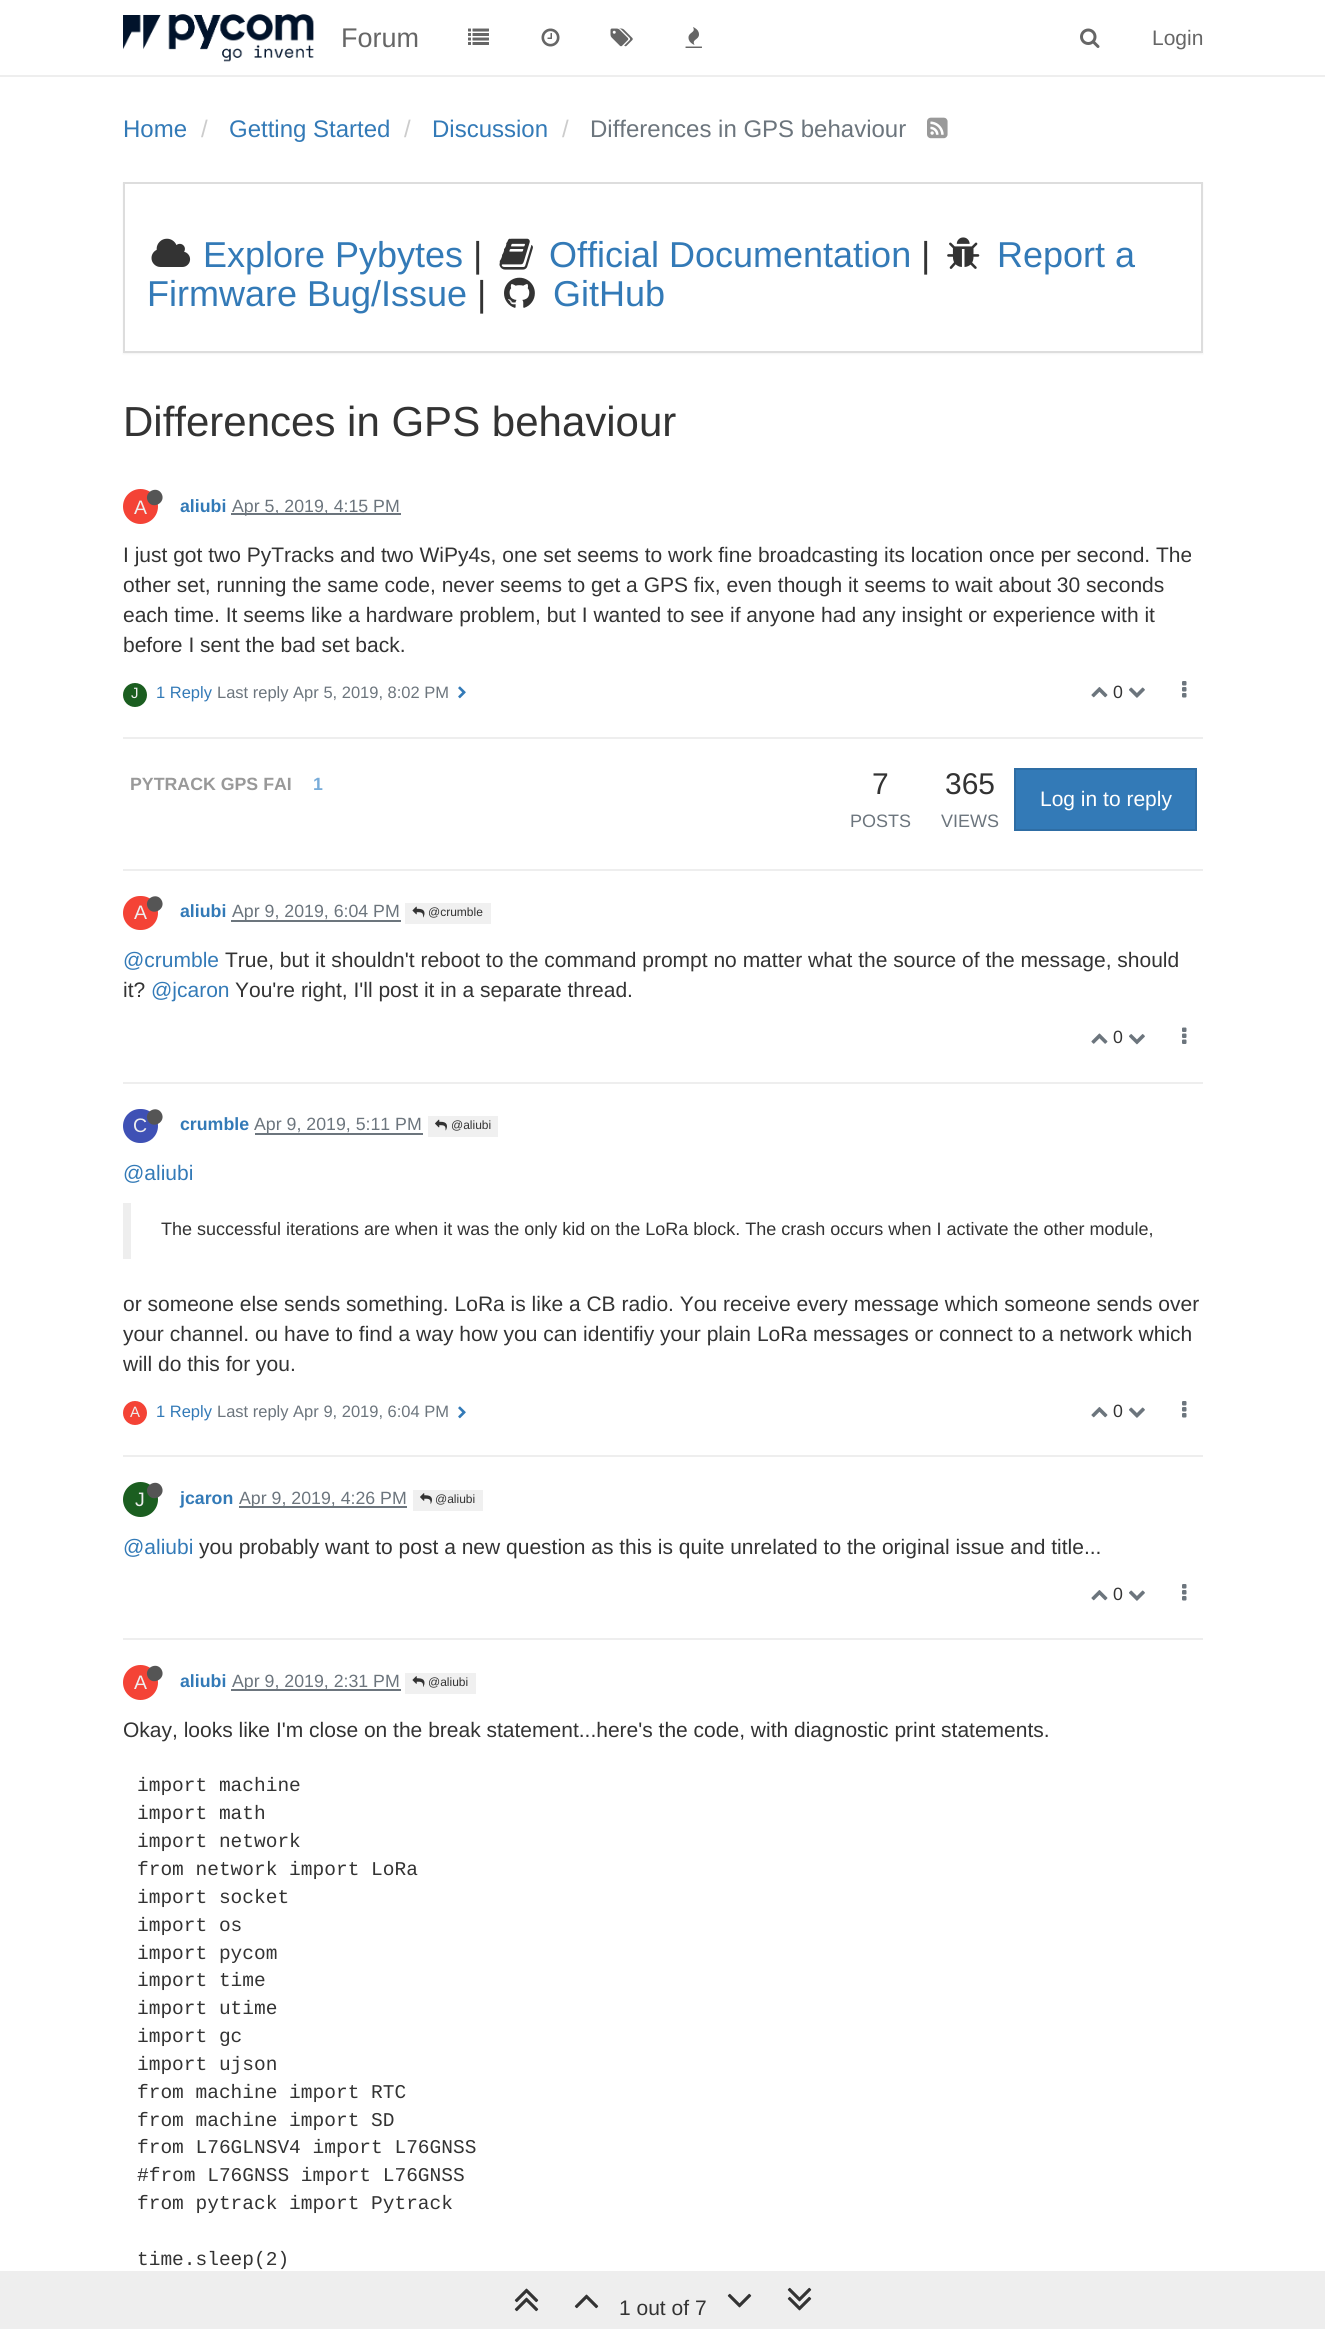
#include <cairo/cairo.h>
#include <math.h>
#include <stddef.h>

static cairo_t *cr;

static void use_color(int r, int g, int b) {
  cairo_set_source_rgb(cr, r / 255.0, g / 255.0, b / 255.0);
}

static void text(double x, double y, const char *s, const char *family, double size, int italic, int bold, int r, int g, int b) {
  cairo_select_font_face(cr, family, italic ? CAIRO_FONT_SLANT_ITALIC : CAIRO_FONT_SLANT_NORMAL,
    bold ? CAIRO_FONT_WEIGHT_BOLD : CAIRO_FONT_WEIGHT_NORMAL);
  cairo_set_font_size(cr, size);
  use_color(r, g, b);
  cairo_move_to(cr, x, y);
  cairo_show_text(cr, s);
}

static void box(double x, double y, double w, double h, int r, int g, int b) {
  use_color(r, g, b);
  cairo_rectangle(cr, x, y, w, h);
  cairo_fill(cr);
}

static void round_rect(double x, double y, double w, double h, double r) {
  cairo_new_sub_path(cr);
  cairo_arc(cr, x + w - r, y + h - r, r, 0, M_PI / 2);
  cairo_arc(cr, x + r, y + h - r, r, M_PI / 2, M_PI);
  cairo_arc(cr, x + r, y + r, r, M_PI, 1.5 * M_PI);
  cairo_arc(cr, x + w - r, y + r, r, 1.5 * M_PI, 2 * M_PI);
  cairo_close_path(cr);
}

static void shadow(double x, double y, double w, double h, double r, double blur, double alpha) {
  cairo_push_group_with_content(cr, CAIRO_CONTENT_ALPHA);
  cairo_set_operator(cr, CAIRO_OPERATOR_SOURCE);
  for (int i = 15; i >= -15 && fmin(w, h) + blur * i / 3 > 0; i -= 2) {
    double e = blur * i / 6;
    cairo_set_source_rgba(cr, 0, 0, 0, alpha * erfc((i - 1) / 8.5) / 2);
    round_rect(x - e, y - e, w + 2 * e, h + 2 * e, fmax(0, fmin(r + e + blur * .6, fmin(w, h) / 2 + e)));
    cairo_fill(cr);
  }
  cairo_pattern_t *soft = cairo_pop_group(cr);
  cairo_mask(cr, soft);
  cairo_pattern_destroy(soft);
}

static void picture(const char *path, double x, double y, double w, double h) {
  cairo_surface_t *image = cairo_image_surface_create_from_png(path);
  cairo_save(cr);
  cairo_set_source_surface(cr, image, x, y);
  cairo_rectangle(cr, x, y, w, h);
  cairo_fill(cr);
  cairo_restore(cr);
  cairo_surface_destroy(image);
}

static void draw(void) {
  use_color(255, 255, 255);
  cairo_paint(cr);
  box(0, 75, 1325, 2, 238, 238, 238);
  picture("img_01.png", 123, 14, 191, 48);
  picture("img_02.png", 468, 28, 21, 17);
  picture("img_03.png", 541, 28, 19, 19);
  picture("img_04.png", 610, 28, 23, 19);
  picture("img_05.png", 685, 27, 17, 21);
  picture("img_06.png", 1080, 28, 20, 20);
  picture("img_07.png", 927, 117, 21, 22);
  use_color(0, 0, 0);
  shadow(123, 183, 1080, 171, 0, 1, 0.05);
  use_color(255, 255, 255);
  cairo_rectangle(cr, 124, 183, 1078, 169);
  cairo_fill_preserve(cr);
  use_color(221, 221, 221);
  cairo_stroke(cr);
  picture("img_08.png", 151, 238, 40, 29);
  picture("img_09.png", 499, 238, 34, 32);
  picture("img_10.png", 947, 237, 33, 32);
  picture("img_11.png", 504, 277, 31, 31);
  use_color(244, 67, 54);
  cairo_arc(cr, 140.5, 506.5, 17.5, 0, 2 * M_PI);
  cairo_fill(cr);
  box(231, 513, 170, 2, 108, 117, 125);
  use_color(27, 94, 32);
  cairo_arc(cr, 135, 695, 12, 0, 2 * M_PI);
  cairo_fill(cr);
  picture("img_12.png", 458, 686, 8, 13);
  picture("img_13.png", 1091, 687, 17, 11);
  picture("img_14.png", 1129, 687, 16, 11);
  picture("img_15.png", 1182, 681, 5, 17);
  box(123, 737, 1080, 2, 238, 238, 238);
  use_color(51, 122, 183);
  cairo_rectangle(cr, 1015, 769, 181, 61);
  cairo_fill_preserve(cr);
  use_color(46, 109, 164);
  cairo_stroke(cr);
  box(123, 869, 1080, 2, 238, 238, 238);
  use_color(244, 67, 54);
  round_rect(123, 896, 35, 34, 17);
  cairo_fill(cr);
  box(231, 920, 170, 2, 108, 117, 125);
  box(405, 903, 86, 21, 240, 240, 240);
  picture("img_16.png", 412, 906, 13, 12);
  picture("img_17.png", 1091, 1033, 17, 11);
  picture("img_18.png", 1129, 1034, 16, 11);
  picture("img_19.png", 1182, 1027, 5, 17);
  box(123, 1082, 1080, 2, 238, 238, 238);
  use_color(63, 81, 181);
  round_rect(123, 1109, 35, 34, 17);
  cairo_fill(cr);
  box(255, 1133, 168, 2, 108, 117, 125);
  box(428, 1116, 70, 21, 240, 240, 240);
  picture("img_20.png", 435, 1119, 12, 12);
  box(123, 1203, 8, 56, 238, 238, 238);
  use_color(244, 67, 54);
  cairo_arc(cr, 135, 1413, 12, 0, 2 * M_PI);
  cairo_fill(cr);
  picture("img_12.png", 458, 1406, 8, 13);
  picture("img_13.png", 1091, 1407, 17, 11);
  picture("img_14.png", 1129, 1407, 16, 11);
  picture("img_15.png", 1182, 1401, 5, 17);
  box(123, 1455, 1080, 2, 238, 238, 238);
  use_color(27, 94, 32);
  cairo_arc(cr, 140.5, 1499.5, 17.5, 0, 2 * M_PI);
  cairo_fill(cr);
  use_color(85, 85, 85);
  cairo_new_path(cr);
  cairo_move_to(cr, 161.5, 1486.5);
  cairo_curve_to(cr, 166.5, 1495.5, 153, 1503, 148, 1494.5);
  cairo_curve_to(cr, 143, 1485.5, 156.5, 1478, 161.5, 1486.5);
  cairo_close_path(cr);
  cairo_fill(cr);
  box(239, 1506, 168, 2, 108, 117, 125);
  box(413, 1490, 70, 21, 240, 240, 240);
  picture("img_21.png", 420, 1493, 12, 11);
  picture("img_13.png", 1091, 1590, 17, 11);
  picture("img_14.png", 1129, 1590, 16, 11);
  picture("img_15.png", 1182, 1584, 5, 17);
  box(123, 1638, 1080, 2, 238, 238, 238);
  use_color(244, 67, 54);
  cairo_arc(cr, 140.5, 1682.5, 17.5, 0, 2 * M_PI);
  cairo_fill(cr);
  box(231, 1689, 170, 2, 108, 117, 125);
  box(405, 1673, 71, 21, 240, 240, 240);
  picture("img_22.png", 412, 1676, 13, 11);
  box(0, 2271, 1325, 58, 238, 238, 238);
  picture("img_23.png", 514, 2288, 25, 24);
  picture("img_24.png", 574, 2294, 25, 15);
  picture("img_25.png", 727, 2293, 25, 15);
  picture("img_26.png", 787, 2287, 25, 24);
  text(341, 47, "Forum", "Liberation Sans", 27, 0, 0, 102, 102, 102);
  text(1152, 45, "Login", "Liberation Sans", 21, 0, 0, 102, 102, 102);
  text(123, 137, "Home", "Liberation Sans", 24, 0, 0, 51, 122, 183);
  text(201, 137, "/", "Liberation Sans", 24, 0, 0, 204, 204, 204);
  text(229, 137, "Getting Started", "Liberation Sans", 24, 0, 0, 51, 122, 183);
  text(404, 137, "/", "Liberation Sans", 24, 0, 0, 204, 204, 204);
  text(432, 137, "Discussion", "Liberation Sans", 24, 0, 0, 51, 122, 183);
  text(562, 137, "/", "Liberation Sans", 24, 0, 0, 204, 204, 204);
  text(590, 137, "Differences in GPS behaviour", "Liberation Sans", 24, 0, 0, 108, 117, 125);
  text(203, 267, "Explore Pybytes", "Liberation Sans", 36, 0, 0, 51, 122, 183);
  text(473, 267, "|", "Liberation Sans", 36, 0, 0, 51, 51, 51);
  text(549, 267, "Official Documentation", "Liberation Sans", 36, 0, 0, 51, 122, 183);
  text(921, 267, "|", "Liberation Sans", 36, 0, 0, 51, 51, 51);
  text(997, 267, "Report a", "Liberation Sans", 36, 0, 0, 51, 122, 183);
  text(147, 306, "Firmware Bug/Issue", "Liberation Sans", 36, 0, 0, 51, 122, 183);
  text(477, 306, "|", "Liberation Sans", 36, 0, 0, 51, 51, 51);
  text(553, 306, "GitHub", "Liberation Sans", 36, 0, 0, 51, 122, 183);
  text(123, 436, "Differences in GPS behaviour", "Liberation Sans", 42, 0, 0, 51, 51, 51);
  text(134, 514, "A", "Liberation Sans", 19.5, 0, 0, 238, 238, 238);
  use_color(85, 85, 85);
  cairo_new_path(cr);
  cairo_move_to(cr, 161.5, 493.5);
  cairo_curve_to(cr, 166.5, 502.5, 153, 510, 148, 501.5);
  cairo_curve_to(cr, 143, 492.5, 156.5, 485, 161.5, 493.5);
  cairo_close_path(cr);
  cairo_fill(cr);
  text(180, 512, "aliubi", "Liberation Sans", 17.75, 0, 1, 51, 122, 183);
  text(232, 512, "Apr 5, 2019, 4:15 PM", "Liberation Sans", 17.75, 0, 0, 108, 117, 125);
  text(123, 562, "I just got two PyTracks and two WiPy4s, one set seems to work fine broadcasting its location once per second. The", "Liberation Sans", 21, 0, 0, 51, 51, 51);
  text(123, 592, "other set, running the same code, never seems to get a GPS fix, even though it seems to wait about 30 seconds", "Liberation Sans", 21, 0, 0, 51, 51, 51);
  text(123, 622, "each time. It seems like a hardware problem, but I wanted to see if anyone had any insight or experience with it", "Liberation Sans", 21, 0, 0, 51, 51, 51);
  text(123, 652, "before I sent the bad set back.", "Liberation Sans", 21, 0, 0, 51, 51, 51);
  text(131, 698, "J", "Liberation Sans", 15, 0, 0, 238, 238, 238);
  text(156, 698, "1 Reply", "Liberation Sans", 16.5, 0, 0, 51, 122, 183);
  text(217, 698, "Last reply Apr 5, 2019, 8:02 PM", "Liberation Sans", 16.5, 0, 0, 108, 117, 125);
  text(1113, 698, "0", "Liberation Sans", 17.75, 0, 0, 51, 51, 51);
  text(130, 790, "PYTRACK GPS FAI", "Liberation Sans", 17.75, 0, 1, 153, 153, 153);
  text(313, 790, "1", "Liberation Sans", 17.75, 0, 1, 120, 172, 217);
  text(872, 794, "7", "Liberation Sans", 30, 0, 0, 51, 51, 51);
  text(850, 827, "POSTS", "Liberation Sans", 18, 0, 0, 108, 117, 125);
  text(945, 794, "365", "Liberation Sans", 30, 0, 0, 51, 51, 51);
  text(941, 827, "VIEWS", "Liberation Sans", 18, 0, 0, 108, 117, 125);
  text(1040, 806, "Log in to reply", "Liberation Sans", 21, 0, 0, 255, 255, 255);
  text(134, 919, "A", "Liberation Sans", 19.5, 0, 0, 238, 238, 238);
  use_color(85, 85, 85);
  cairo_new_path(cr);
  cairo_move_to(cr, 161.5, 900);
  cairo_curve_to(cr, 166.5, 909, 153, 916.5, 148, 908);
  cairo_curve_to(cr, 143, 899, 156.5, 891.5, 161.5, 900);
  cairo_close_path(cr);
  cairo_fill(cr);
  text(180, 917, "aliubi", "Liberation Sans", 17.75, 0, 1, 51, 122, 183);
  text(232, 917, "Apr 9, 2019, 6:04 PM", "Liberation Sans", 17.75, 0, 0, 108, 117, 125);
  text(428, 916, "@crumble", "Liberation Sans", 12, 0, 0, 51, 51, 51);
  text(123, 967, "@crumble", "Liberation Sans", 21, 0, 0, 51, 122, 183);
  text(225, 967, "True, but it shouldn't reboot to the command prompt no matter what the source of the message, should", "Liberation Sans", 21, 0, 0, 51, 51, 51);
  text(123, 997, "it?", "Liberation Sans", 21, 0, 0, 51, 51, 51);
  text(151, 997, "@jcaron", "Liberation Sans", 21, 0, 0, 51, 122, 183);
  text(235, 997, "You're right, I'll post it in a separate thread.", "Liberation Sans", 21, 0, 0, 51, 51, 51);
  text(1113, 1043, "0", "Liberation Sans", 17.75, 0, 0, 51, 51, 51);
  text(133, 1132, "C", "Liberation Sans", 19.5, 0, 0, 238, 238, 238);
  use_color(85, 85, 85);
  cairo_new_path(cr);
  cairo_move_to(cr, 161.5, 1113);
  cairo_curve_to(cr, 166.5, 1122, 153, 1129.5, 148, 1121);
  cairo_curve_to(cr, 143, 1112, 156.5, 1104.5, 161.5, 1113);
  cairo_close_path(cr);
  cairo_fill(cr);
  text(180, 1130, "crumble", "Liberation Sans", 17.75, 0, 1, 51, 122, 183);
  text(254, 1130, "Apr 9, 2019, 5:11 PM", "Liberation Sans", 17.75, 0, 0, 108, 117, 125);
  text(451, 1129, "@aliubi", "Liberation Sans", 12, 0, 0, 51, 51, 51);
  text(123, 1180, "@aliubi", "Liberation Sans", 21, 0, 0, 51, 122, 183);
  text(161, 1235, "The successful iterations are when it was the only kid on the LoRa block. The crash occurs when I activate the other module,", "Liberation Sans", 18, 0, 0, 51, 51, 51);
  text(123, 1311, "or someone else sends something. LoRa is like a CB radio. You receive every message which someone sends over", "Liberation Sans", 21, 0, 0, 51, 51, 51);
  text(123, 1341, "your channel. ou have to find a way how you can identifiy your plain LoRa messages or connect to a network which", "Liberation Sans", 21, 0, 0, 51, 51, 51);
  text(123, 1371, "will do this for you.", "Liberation Sans", 21, 0, 0, 51, 51, 51);
  text(130, 1417, "A", "Liberation Sans", 15, 0, 0, 238, 238, 238);
  text(156, 1417, "1 Reply", "Liberation Sans", 16.5, 0, 0, 51, 122, 183);
  text(217, 1417, "Last reply Apr 9, 2019, 6:04 PM", "Liberation Sans", 16.5, 0, 0, 108, 117, 125);
  text(1113, 1417, "0", "Liberation Sans", 17.75, 0, 0, 51, 51, 51);
  text(135, 1506, "J", "Liberation Sans", 19.5, 0, 0, 238, 238, 238);
  text(180, 1504, "jcaron", "Liberation Sans", 17.75, 0, 1, 51, 122, 183);
  text(239, 1504, "Apr 9, 2019, 4:26 PM", "Liberation Sans", 17.75, 0, 0, 108, 117, 125);
  text(435, 1503, "@aliubi", "Liberation Sans", 12, 0, 0, 51, 51, 51);
  text(123, 1554, "@aliubi", "Liberation Sans", 21, 0, 0, 51, 122, 183);
  text(199, 1554, "you probably want to post a new question as this is quite unrelated to the original issue and title...", "Liberation Sans", 21, 0, 0, 51, 51, 51);
  text(1113, 1600, "0", "Liberation Sans", 17.75, 0, 0, 51, 51, 51);
  text(134, 1689, "A", "Liberation Sans", 19.5, 0, 0, 238, 238, 238);
  use_color(85, 85, 85);
  cairo_new_path(cr);
  cairo_move_to(cr, 161.5, 1669.5);
  cairo_curve_to(cr, 166.5, 1678.5, 153, 1686, 148, 1677.5);
  cairo_curve_to(cr, 143, 1668.5, 156.5, 1661, 161.5, 1669.5);
  cairo_close_path(cr);
  cairo_fill(cr);
  text(180, 1687, "aliubi", "Liberation Sans", 17.75, 0, 1, 51, 122, 183);
  text(232, 1687, "Apr 9, 2019, 2:31 PM", "Liberation Sans", 17.75, 0, 0, 108, 117, 125);
  text(428, 1686, "@aliubi", "Liberation Sans", 12, 0, 0, 51, 51, 51);
  text(123, 1737, "Okay, looks like I'm close on the break statement...here's the code, with diagnostic print statements.", "Liberation Sans", 21, 0, 0, 51, 51, 51);
  text(137, 1791, "import machine", "Liberation Mono", 19.5, 0, 0, 51, 51, 51);
  text(137, 1819, "import math", "Liberation Mono", 19.5, 0, 0, 51, 51, 51);
  text(137, 1847, "import network", "Liberation Mono", 19.5, 0, 0, 51, 51, 51);
  text(137, 1875, "from network import LoRa", "Liberation Mono", 19.5, 0, 0, 51, 51, 51);
  text(137, 1903, "import socket", "Liberation Mono", 19.5, 0, 0, 51, 51, 51);
  text(137, 1931, "import os", "Liberation Mono", 19.5, 0, 0, 51, 51, 51);
  text(137, 1959, "import pycom", "Liberation Mono", 19.5, 0, 0, 51, 51, 51);
  text(137, 1986, "import time", "Liberation Mono", 19.5, 0, 0, 51, 51, 51);
  text(137, 2014, "import utime", "Liberation Mono", 19.5, 0, 0, 51, 51, 51);
  text(137, 2042, "import gc", "Liberation Mono", 19.5, 0, 0, 51, 51, 51);
  text(137, 2070, "import ujson", "Liberation Mono", 19.5, 0, 0, 51, 51, 51);
  text(137, 2098, "from machine import RTC", "Liberation Mono", 19.5, 0, 0, 51, 51, 51);
  text(137, 2126, "from machine import SD", "Liberation Mono", 19.5, 0, 0, 51, 51, 51);
  text(137, 2153, "from L76GLNSV4 import L76GNSS", "Liberation Mono", 19.5, 0, 0, 51, 51, 51);
  text(137, 2181, "#from L76GNSS import L76GNSS", "Liberation Mono", 19.5, 0, 0, 51, 51, 51);
  text(137, 2209, "from pytrack import Pytrack", "Liberation Mono", 19.5, 0, 0, 51, 51, 51);
  text(137, 2265, "time.sleep(2)", "Liberation Mono", 19.5, 0, 0, 51, 51, 51);
  text(619, 2315, "1 out of 7", "Liberation Sans", 21, 0, 0, 51, 51, 51);
}

int main(void) {
  cairo_surface_t *surface = cairo_image_surface_create(CAIRO_FORMAT_RGB24, 1325, 2329);
  cr = cairo_create(surface);
  cairo_font_options_t *options = cairo_font_options_create();
  cairo_font_options_set_hint_metrics(options, CAIRO_HINT_METRICS_OFF);
  cairo_font_options_set_hint_style(options, CAIRO_HINT_STYLE_NONE);
  cairo_set_font_options(cr, options);
  cairo_set_miter_limit(cr, 4);
  draw();
  cairo_surface_write_to_png(surface, "out.png");
  cairo_font_options_destroy(options);
  cairo_destroy(cr);
  cairo_surface_destroy(surface);
  return 0;
}
